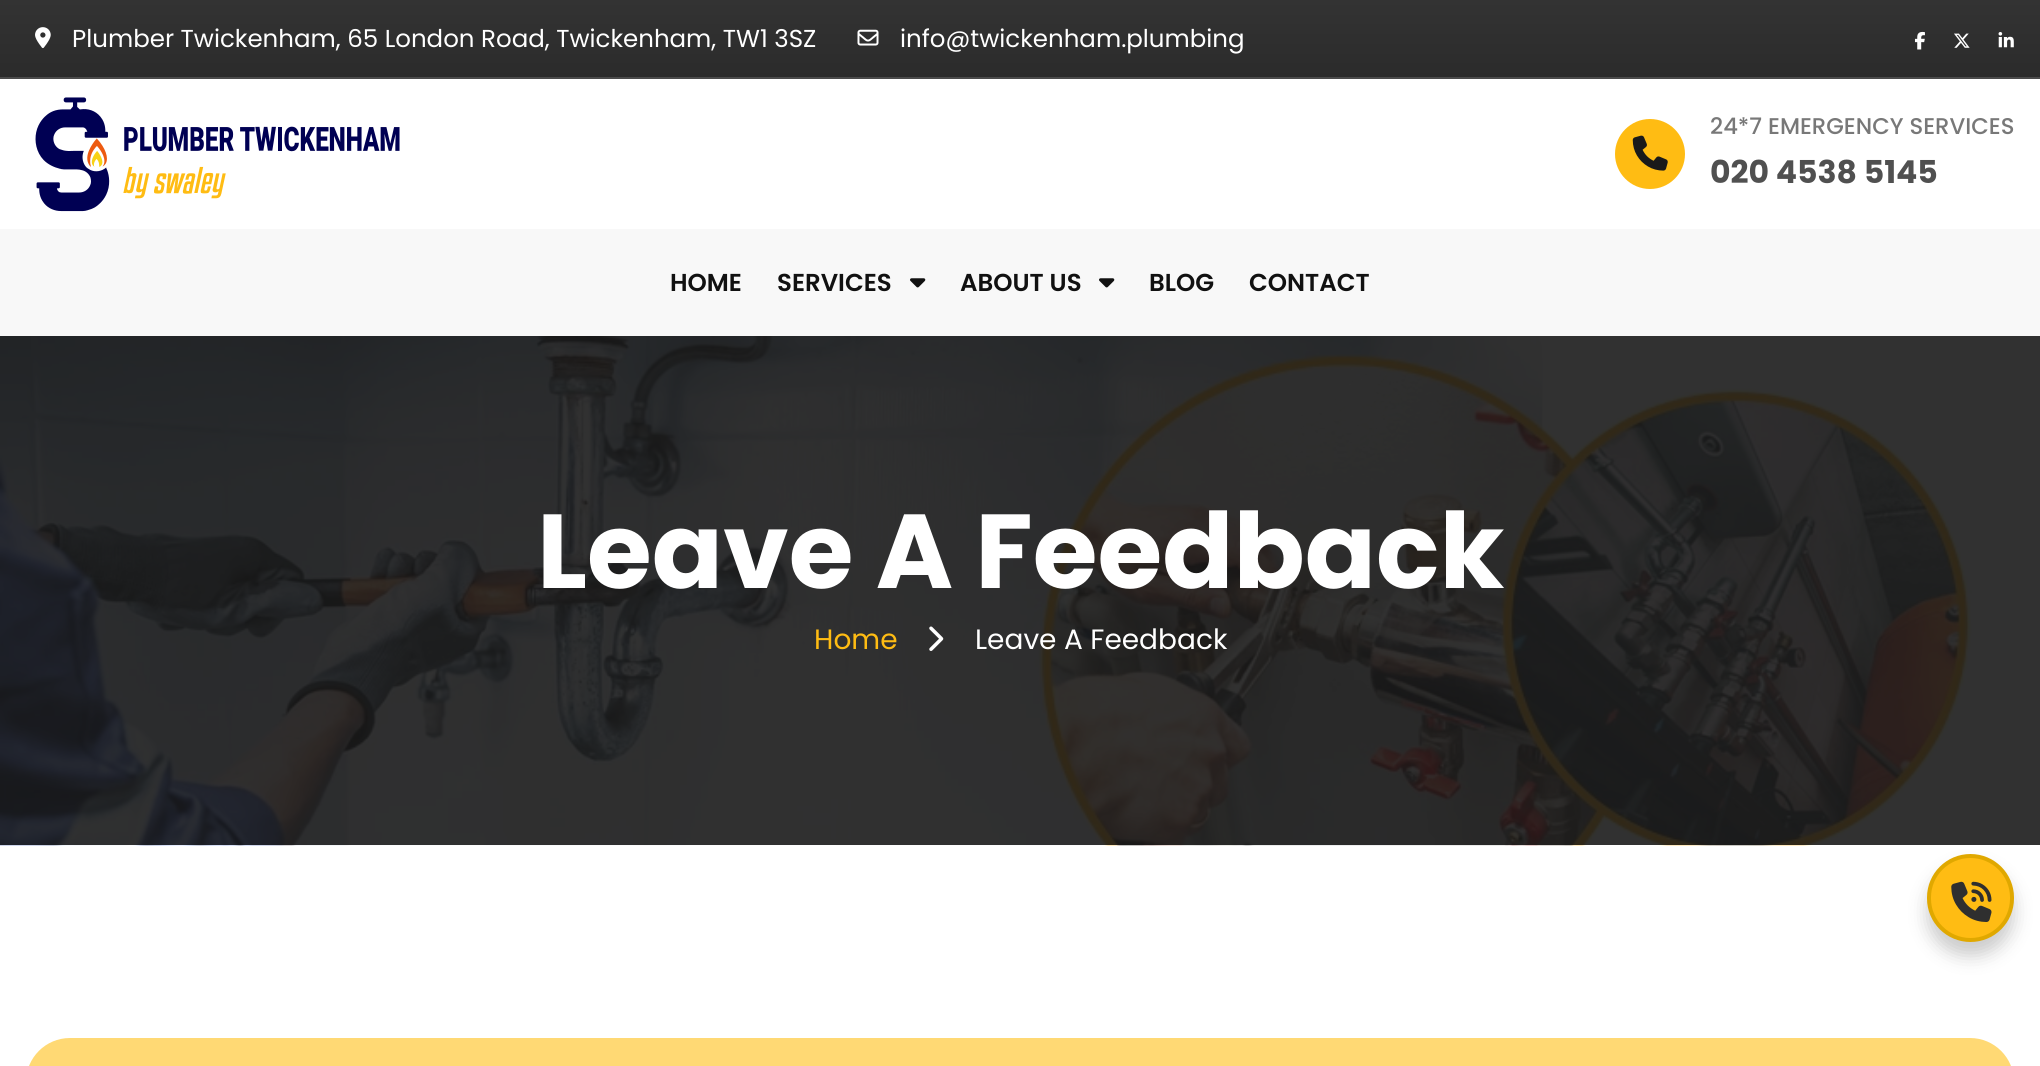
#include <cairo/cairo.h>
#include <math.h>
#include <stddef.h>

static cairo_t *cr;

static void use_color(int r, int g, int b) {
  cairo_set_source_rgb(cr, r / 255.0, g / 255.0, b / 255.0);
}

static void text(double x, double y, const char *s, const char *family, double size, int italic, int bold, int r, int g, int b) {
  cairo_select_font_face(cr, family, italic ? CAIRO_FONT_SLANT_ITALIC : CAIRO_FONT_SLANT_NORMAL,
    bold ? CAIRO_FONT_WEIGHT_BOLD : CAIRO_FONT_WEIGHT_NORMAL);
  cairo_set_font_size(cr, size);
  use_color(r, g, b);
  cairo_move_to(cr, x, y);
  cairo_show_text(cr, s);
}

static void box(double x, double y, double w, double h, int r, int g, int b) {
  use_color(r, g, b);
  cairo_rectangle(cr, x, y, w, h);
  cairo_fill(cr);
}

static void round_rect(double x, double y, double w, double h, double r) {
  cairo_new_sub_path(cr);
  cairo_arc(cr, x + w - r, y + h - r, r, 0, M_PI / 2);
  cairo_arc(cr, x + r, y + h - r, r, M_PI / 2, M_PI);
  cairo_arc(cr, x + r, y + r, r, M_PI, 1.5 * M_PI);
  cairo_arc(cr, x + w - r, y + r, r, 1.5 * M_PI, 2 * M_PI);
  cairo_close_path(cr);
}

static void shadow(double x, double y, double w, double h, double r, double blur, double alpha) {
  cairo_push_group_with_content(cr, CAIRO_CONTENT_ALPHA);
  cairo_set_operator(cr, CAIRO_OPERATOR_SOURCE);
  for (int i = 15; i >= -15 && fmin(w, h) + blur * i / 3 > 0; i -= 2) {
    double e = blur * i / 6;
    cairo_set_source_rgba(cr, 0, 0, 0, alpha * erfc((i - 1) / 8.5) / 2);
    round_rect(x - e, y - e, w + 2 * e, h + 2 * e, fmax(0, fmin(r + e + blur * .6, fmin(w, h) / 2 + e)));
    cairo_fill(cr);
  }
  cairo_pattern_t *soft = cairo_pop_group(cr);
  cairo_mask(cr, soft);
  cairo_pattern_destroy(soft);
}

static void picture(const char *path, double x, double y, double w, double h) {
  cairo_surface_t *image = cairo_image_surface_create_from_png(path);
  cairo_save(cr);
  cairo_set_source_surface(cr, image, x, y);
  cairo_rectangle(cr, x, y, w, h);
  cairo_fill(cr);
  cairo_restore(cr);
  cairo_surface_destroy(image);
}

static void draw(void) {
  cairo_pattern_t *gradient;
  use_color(255, 255, 255);
  cairo_paint(cr);
  box(1972, 336, 68, 509, 49, 49, 49);
  gradient = cairo_pattern_create_linear(1020, 0, 1020, 77);
  cairo_pattern_add_color_stop_rgba(gradient, 0, 0.2, 0.2, 0.2, 1);
  cairo_pattern_add_color_stop_rgba(gradient, 1, 0.169, 0.169, 0.169, 1);
  cairo_set_source(cr, gradient);
  cairo_pattern_destroy(gradient);
  cairo_rectangle(cr, 0, 0, 2040, 77);
  cairo_fill(cr);
  box(0, 77, 2040, 2, 75, 75, 75);
  picture("img_01.png", 35, 27, 16, 22);
  picture("img_02.png", 857, 29, 22, 17);
  picture("img_03.png", 1914, 31, 11, 19);
  picture("img_04.png", 1954, 33, 16, 15);
  picture("img_05.png", 1998, 32, 16, 16);
  picture("img_06.png", 35, 97, 365, 115);
  use_color(255, 188, 19);
  cairo_arc(cr, 1650, 154, 35, 0, 2 * M_PI);
  cairo_fill(cr);
  picture("img_07.png", 1632, 135, 36, 36);
  box(0, 229, 2040, 107, 248, 248, 248);
  picture("img_08.png", 910, 278, 16, 10);
  picture("img_08.png", 1099, 278, 16, 10);
  picture("img_09.png", 0, 336, 1972, 510);
  picture("img_10.png", 929, 626, 15, 25);
  use_color(0, 0, 0);
  shadow(1927, 868, 87, 88, 43.5, 9, 0.2);
  use_color(255, 188, 19);
  round_rect(1929, 856, 83, 84, 41.5);
  cairo_fill_preserve(cr);
  use_color(224, 168, 0);
  cairo_set_line_width(cr, 4);
  cairo_stroke(cr);
  picture("img_11.png", 1951, 881, 41, 41);
  use_color(255, 217, 116);
  round_rect(26, 1038, 1988, 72, 44);
  cairo_fill(cr);
  text(72, 47, "Plumber Twickenham, 65 London Road, Twickenham, TW1 3SZ", "Poppins", 24.5, 0, 0, 255, 255, 255);
  text(900, 47, "info@twickenham.plumbing", "Poppins", 24.5, 0, 0, 255, 255, 255);
  text(1710, 134, "24*7 EMERGENCY SERVICES", "Poppins Medium", 22.75, 0, 0, 120, 120, 120);
  text(1710, 183, "020 4538 5145", "Poppins", 31.5, 0, 1, 80, 80, 80);
  text(670, 291, "HOME", "Poppins SemiBold", 24.5, 0, 0, 17, 17, 17);
  text(777, 291, "SERVICES", "Poppins SemiBold", 24.5, 0, 0, 17, 17, 17);
  text(960, 291, "ABOUT US", "Poppins SemiBold", 24.5, 0, 0, 17, 17, 17);
  text(1149, 291, "BLOG", "Poppins SemiBold", 24.5, 0, 0, 17, 17, 17);
  text(1249, 291, "CONTACT", "Poppins SemiBold", 24.5, 0, 0, 17, 17, 17);
  text(537, 588, "Leave A Feedback", "Poppins", 105, 0, 1, 255, 255, 255);
  text(814, 649, "Home", "Poppins", 28, 0, 0, 255, 188, 19);
  text(975, 649, "Leave A Feedback", "Poppins", 28, 0, 0, 255, 255, 255);
}

int main(void) {
  cairo_surface_t *surface = cairo_image_surface_create(CAIRO_FORMAT_RGB24, 2040, 1066);
  cr = cairo_create(surface);
  cairo_font_options_t *options = cairo_font_options_create();
  cairo_font_options_set_hint_metrics(options, CAIRO_HINT_METRICS_OFF);
  cairo_font_options_set_hint_style(options, CAIRO_HINT_STYLE_NONE);
  cairo_set_font_options(cr, options);
  cairo_set_miter_limit(cr, 4);
  draw();
  cairo_surface_write_to_png(surface, "out.png");
  cairo_font_options_destroy(options);
  cairo_destroy(cr);
  cairo_surface_destroy(surface);
  return 0;
}
